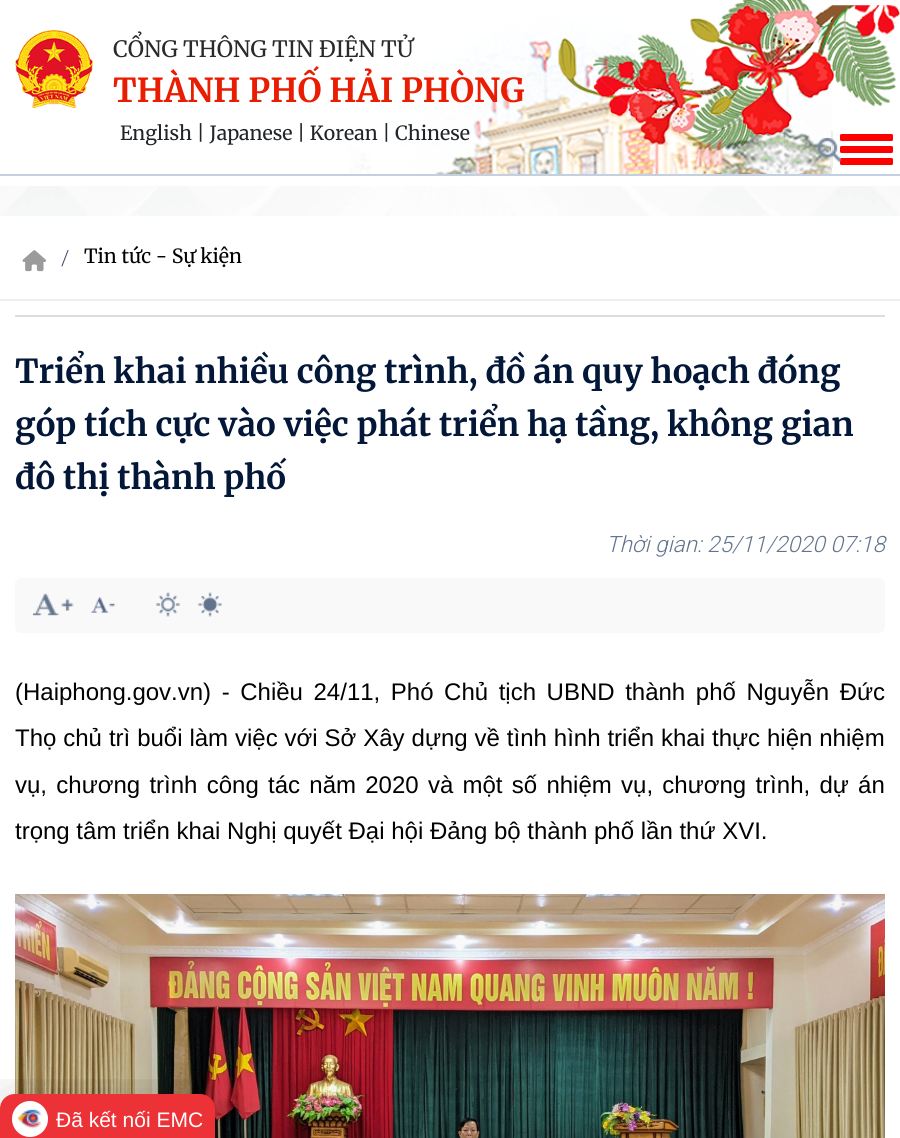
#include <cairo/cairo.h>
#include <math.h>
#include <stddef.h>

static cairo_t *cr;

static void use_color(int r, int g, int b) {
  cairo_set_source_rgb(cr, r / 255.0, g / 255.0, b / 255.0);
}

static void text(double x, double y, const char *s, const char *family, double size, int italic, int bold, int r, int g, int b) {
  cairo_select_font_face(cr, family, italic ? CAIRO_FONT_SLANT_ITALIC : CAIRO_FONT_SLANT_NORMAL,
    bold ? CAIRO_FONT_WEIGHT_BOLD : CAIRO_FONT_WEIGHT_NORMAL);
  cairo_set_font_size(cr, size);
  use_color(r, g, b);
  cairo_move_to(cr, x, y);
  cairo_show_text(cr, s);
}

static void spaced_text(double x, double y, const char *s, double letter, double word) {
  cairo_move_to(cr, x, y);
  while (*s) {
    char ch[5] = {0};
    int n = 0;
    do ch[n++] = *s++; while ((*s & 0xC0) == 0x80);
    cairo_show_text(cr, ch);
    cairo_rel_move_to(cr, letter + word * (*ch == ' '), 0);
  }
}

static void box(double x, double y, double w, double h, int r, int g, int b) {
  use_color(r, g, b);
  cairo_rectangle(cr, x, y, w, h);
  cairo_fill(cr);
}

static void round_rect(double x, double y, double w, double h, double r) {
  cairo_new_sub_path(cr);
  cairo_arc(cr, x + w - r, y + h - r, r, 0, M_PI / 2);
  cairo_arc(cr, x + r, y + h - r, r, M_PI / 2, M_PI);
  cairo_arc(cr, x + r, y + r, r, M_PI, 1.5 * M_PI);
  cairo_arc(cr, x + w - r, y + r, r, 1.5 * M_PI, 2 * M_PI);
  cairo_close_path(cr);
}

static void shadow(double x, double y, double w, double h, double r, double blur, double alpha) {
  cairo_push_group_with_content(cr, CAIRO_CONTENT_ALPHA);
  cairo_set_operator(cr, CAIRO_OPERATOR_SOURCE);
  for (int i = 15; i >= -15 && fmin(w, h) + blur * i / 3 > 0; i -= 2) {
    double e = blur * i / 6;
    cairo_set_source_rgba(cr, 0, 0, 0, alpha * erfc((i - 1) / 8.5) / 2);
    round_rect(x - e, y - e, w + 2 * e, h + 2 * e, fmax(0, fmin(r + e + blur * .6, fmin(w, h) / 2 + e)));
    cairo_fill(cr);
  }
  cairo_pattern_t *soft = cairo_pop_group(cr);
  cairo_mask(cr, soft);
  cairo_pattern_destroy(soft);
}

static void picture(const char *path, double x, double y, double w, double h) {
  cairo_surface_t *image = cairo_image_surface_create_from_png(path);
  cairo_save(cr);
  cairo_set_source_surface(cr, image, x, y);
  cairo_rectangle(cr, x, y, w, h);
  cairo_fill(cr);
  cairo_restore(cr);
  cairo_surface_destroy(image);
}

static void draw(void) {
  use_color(255, 255, 255);
  cairo_paint(cr);
  picture("img_01.png", 0, 186, 900, 30);
  picture("img_02.png", 349, 0, 551, 174);
  picture("img_03.png", 15, 30, 78, 78);
  box(831, 131, 2, 37, 238, 238, 238);
  use_color(255, 0, 0);
  round_rect(840, 134, 53, 7, 1.5);
  cairo_fill(cr);
  round_rect(840, 146, 53, 7, 1.5);
  cairo_fill(cr);
  round_rect(840, 158, 53, 7, 1.5);
  cairo_fill(cr);
  picture("img_04.png", 817, 138, 25, 24);
  box(0, 174, 900, 2, 195, 208, 224);
  box(0, 299, 900, 2, 238, 238, 238);
  picture("img_05.png", 22, 250, 25, 22);
  box(15, 315, 870, 2, 221, 221, 221);
  use_color(249, 249, 249);
  round_rect(15, 578, 870, 55, 6);
  cairo_fill(cr);
  picture("img_06.png", 33, 593, 41, 23);
  picture("img_07.png", 91, 597, 25, 16);
  picture("img_08.png", 156, 592, 24, 25);
  picture("img_09.png", 198, 592, 24, 25);
  picture("img_10.png", 15, 894, 870, 244);
  cairo_save(cr);
  cairo_rectangle(cr, 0, 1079, 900, 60);
  cairo_clip(cr);
  use_color(0, 0, 0);
  shadow(0, 1092, 215, 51, 15, 22.5, 0.15);
  cairo_restore(cr);
  use_color(236, 50, 55);
  cairo_new_path(cr);
  cairo_move_to(cr, 15, 1094);
  cairo_line_to(cr, 200, 1094);
  cairo_curve_to(cr, 208.5, 1094, 215, 1100.5, 215, 1109);
  cairo_line_to(cr, 215, 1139);
  cairo_line_to(cr, 0, 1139);
  cairo_line_to(cr, 0, 1109);
  cairo_curve_to(cr, 0, 1100.5, 6.5, 1094, 15, 1094);
  cairo_close_path(cr);
  cairo_fill(cr);
  use_color(255, 255, 255);
  cairo_arc(cr, 30, 1119, 18, 0, 2 * M_PI);
  cairo_fill(cr);
  picture("img_11.png", 18, 1109, 24, 20);
  text(113, 57, "CỔNG THÔNG TIN ĐIỆN TỬ", "Merriweather", 22.5, 0, 0, 42, 42, 42);
  text(113, 102, "THÀNH PHỐ HẢI PHÒNG", "Merriweather", 33, 0, 1, 232, 29, 2);
  text(120, 140, "English | Japanese | Korean | Chinese", "Merriweather", 19.5, 0, 0, 33, 37, 41);
  text(61, 265, "/", "Roboto Light", 21, 0, 0, 59, 78, 104);
  text(84, 263, "Tin tức - Sự kiện", "Merriweather", 19.5, 0, 0, 0, 0, 0);
  text(15, 383, "Triển khai nhiều công trình, đồ án quy hoạch đóng", "Merriweather", 33, 0, 1, 3, 23, 57);
  text(15, 436, "góp tích cực vào việc phát triển hạ tầng, không gian", "Merriweather", 33, 0, 1, 3, 23, 57);
  text(15, 489, "đô thị thành phố", "Merriweather", 33, 0, 1, 3, 23, 57);
  text(606, 552, "Thời gian: 25/11/2020 07:18", "Roboto Light", 22.5, 1, 0, 98, 116, 141);
  cairo_select_font_face(cr, "Liberation Sans", CAIRO_FONT_SLANT_NORMAL, CAIRO_FONT_WEIGHT_NORMAL);
  cairo_set_font_size(cr, 24);
  use_color(0, 0, 0);
  spaced_text(15, 700, "(Haiphong.gov.vn) - Chiều 24/11, Phó Chủ tịch UBND thành phố Nguyễn Đức", 0, 3.9);
  spaced_text(15, 746, "Thọ chủ trì buổi làm việc với Sở Xây dựng về tình hình triển khai thực hiện nhiệm", 0, 0.25);
  spaced_text(15, 793, "vụ, chương trình công tác năm 2020 và một số nhiệm vụ, chương trình, dự án", 0, 2.6);
  text(15, 839, "trọng tâm triển khai Nghị quyết Đại hội Đảng bộ thành phố lần thứ XVI.", "Liberation Sans", 24, 0, 0, 0, 0, 0);
  text(56, 1127, "Đã kết nối EMC", "Liberation Sans", 21, 0, 0, 255, 255, 255);
}

int main(void) {
  cairo_surface_t *surface = cairo_image_surface_create(CAIRO_FORMAT_RGB24, 900, 1138);
  cr = cairo_create(surface);
  cairo_font_options_t *options = cairo_font_options_create();
  cairo_font_options_set_hint_metrics(options, CAIRO_HINT_METRICS_OFF);
  cairo_font_options_set_hint_style(options, CAIRO_HINT_STYLE_NONE);
  cairo_set_font_options(cr, options);
  cairo_set_miter_limit(cr, 4);
  draw();
  cairo_surface_write_to_png(surface, "out.png");
  cairo_font_options_destroy(options);
  cairo_destroy(cr);
  cairo_surface_destroy(surface);
  return 0;
}
